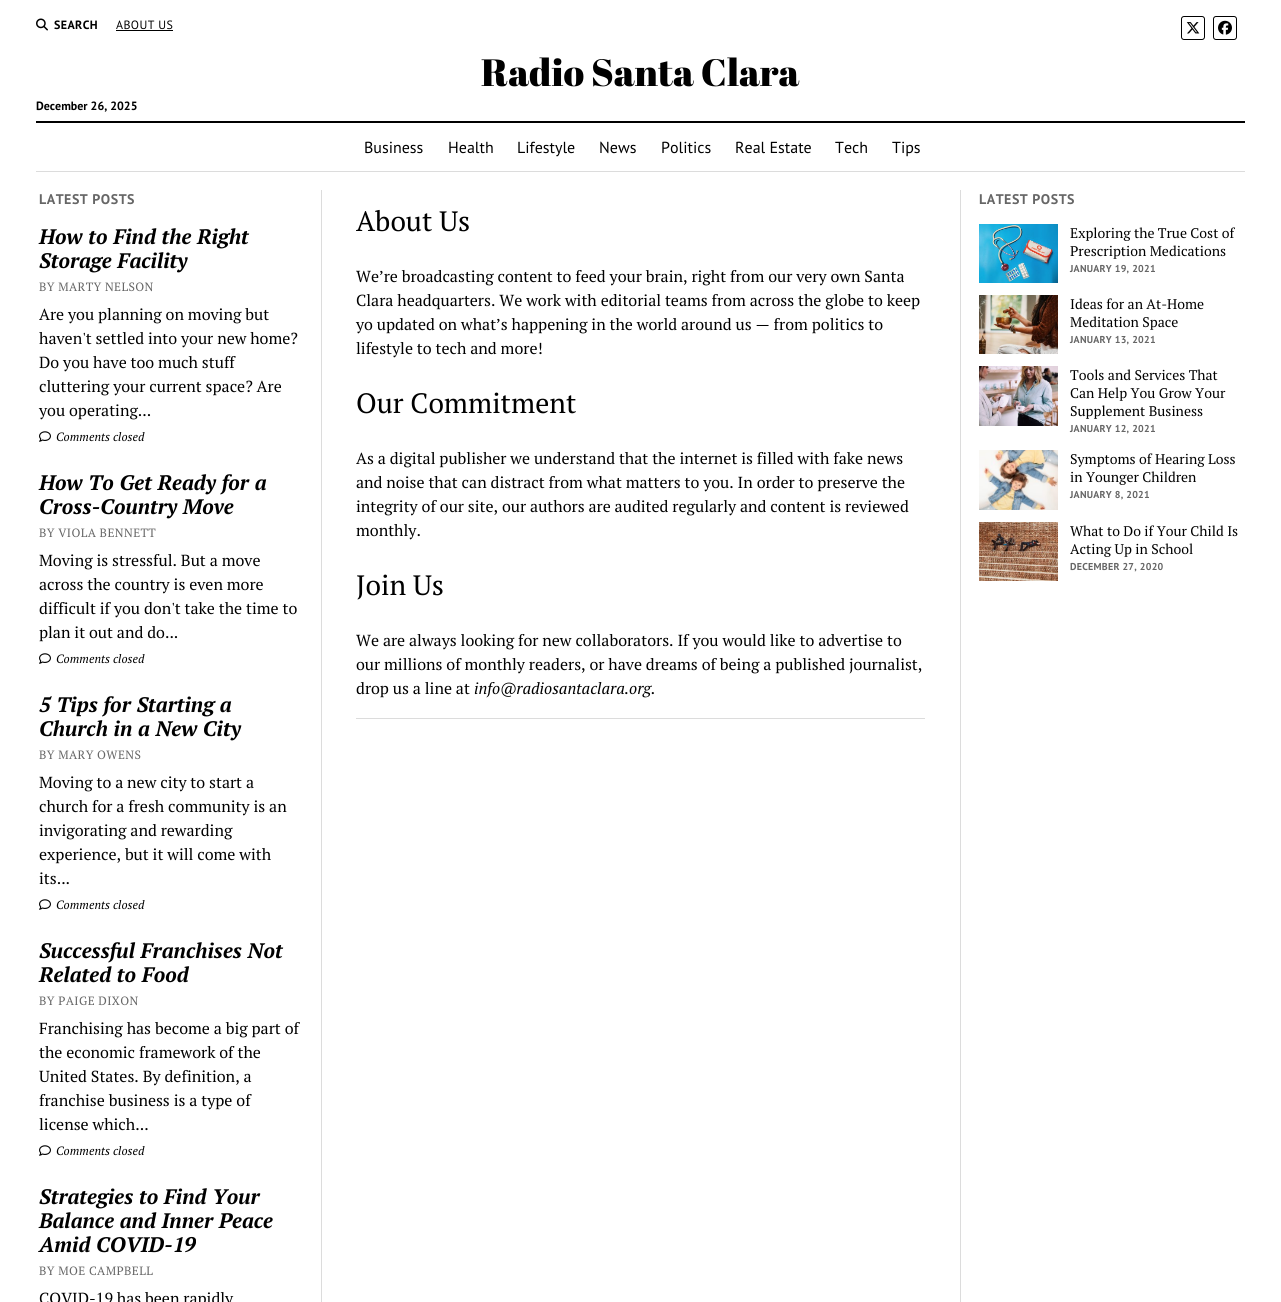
#include <cairo/cairo.h>
#include <math.h>
#include <stddef.h>

static cairo_t *cr;

static void use_color(int r, int g, int b) {
  cairo_set_source_rgb(cr, r / 255.0, g / 255.0, b / 255.0);
}

static void text(double x, double y, const char *s, const char *family, double size, int italic, int bold, int r, int g, int b) {
  cairo_select_font_face(cr, family, italic ? CAIRO_FONT_SLANT_ITALIC : CAIRO_FONT_SLANT_NORMAL,
    bold ? CAIRO_FONT_WEIGHT_BOLD : CAIRO_FONT_WEIGHT_NORMAL);
  cairo_set_font_size(cr, size);
  use_color(r, g, b);
  cairo_move_to(cr, x, y);
  cairo_show_text(cr, s);
}

static void spaced_text(double x, double y, const char *s, double letter, double word) {
  cairo_move_to(cr, x, y);
  while (*s) {
    char ch[5] = {0};
    int n = 0;
    do ch[n++] = *s++; while ((*s & 0xC0) == 0x80);
    cairo_show_text(cr, ch);
    cairo_rel_move_to(cr, letter + word * (*ch == ' '), 0);
  }
}

static void box(double x, double y, double w, double h, int r, int g, int b) {
  use_color(r, g, b);
  cairo_rectangle(cr, x, y, w, h);
  cairo_fill(cr);
}

static void round_rect(double x, double y, double w, double h, double r) {
  cairo_new_sub_path(cr);
  cairo_arc(cr, x + w - r, y + h - r, r, 0, M_PI / 2);
  cairo_arc(cr, x + r, y + h - r, r, M_PI / 2, M_PI);
  cairo_arc(cr, x + r, y + r, r, M_PI, 1.5 * M_PI);
  cairo_arc(cr, x + w - r, y + r, r, 1.5 * M_PI, 2 * M_PI);
  cairo_close_path(cr);
}

static void picture(const char *path, double x, double y, double w, double h) {
  cairo_surface_t *image = cairo_image_surface_create_from_png(path);
  cairo_save(cr);
  cairo_set_source_surface(cr, image, x, y);
  cairo_rectangle(cr, x, y, w, h);
  cairo_fill(cr);
  cairo_restore(cr);
  cairo_surface_destroy(image);
}

static void draw(void) {
  use_color(255, 255, 255);
  cairo_paint(cr);
  picture("img_01.png", 36, 18, 12, 13);
  box(116, 30, 57, 1, 0, 0, 0);
  round_rect(1181.5, 16.5, 23, 23, 2.5);
  cairo_set_line_width(cr, 1);
  cairo_stroke(cr);
  picture("img_02.png", 1186, 22, 14, 12);
  round_rect(1213.5, 16.5, 23, 23, 2.5);
  cairo_stroke(cr);
  picture("img_03.png", 1218, 20, 14, 15);
  box(36, 121, 1209, 2, 0, 0, 0);
  box(36, 171, 1209, 1, 220, 220, 220);
  box(321, 190, 1, 1112, 220, 220, 220);
  box(960, 190, 1, 1112, 220, 220, 220);
  picture("img_04.png", 39, 431, 12, 11);
  picture("img_04.png", 39, 653, 12, 11);
  picture("img_04.png", 39, 899, 12, 11);
  picture("img_04.png", 39, 1145, 12, 11);
  box(356, 718, 569, 1, 220, 220, 220);
  picture("img_05.png", 979, 224, 79, 59);
  picture("img_06.png", 979, 295, 79, 59);
  picture("img_07.png", 979, 366, 79, 60);
  picture("img_08.png", 979, 450, 79, 60);
  picture("img_09.png", 979, 522, 79, 59);
  cairo_select_font_face(cr, "PT Sans", CAIRO_FONT_SLANT_NORMAL, CAIRO_FONT_WEIGHT_BOLD);
  cairo_set_font_size(cr, 12);
  use_color(0, 0, 0);
  spaced_text(54, 29, "SEARCH", 0.4, 0);
  cairo_select_font_face(cr, "PT Sans", CAIRO_FONT_SLANT_NORMAL, CAIRO_FONT_WEIGHT_NORMAL);
  spaced_text(116, 29, "ABOUT US", 0.4, 0);
  text(481, 86, "Radio Santa Clara", "Abril Fatface", 38, 0, 0, 0, 0, 0);
  text(36, 110, "December 26, 2025", "PT Sans", 12, 0, 1, 0, 0, 0);
  text(364, 153, "Business", "PT Sans", 16, 0, 0, 0, 0, 0);
  text(448, 153, "Health", "PT Sans", 16, 0, 0, 0, 0, 0);
  text(517, 153, "Lifestyle", "PT Sans", 16, 0, 0, 0, 0, 0);
  text(599, 153, "News", "PT Sans", 16, 0, 0, 0, 0, 0);
  text(661, 153, "Politics", "PT Sans", 16, 0, 0, 0, 0, 0);
  text(735, 153, "Real Estate", "PT Sans", 16, 0, 0, 0, 0, 0);
  text(835, 153, "Tech", "PT Sans", 16, 0, 0, 0, 0, 0);
  text(892, 153, "Tips", "PT Sans", 16, 0, 0, 0, 0, 0);
  cairo_select_font_face(cr, "PT Sans", CAIRO_FONT_SLANT_NORMAL, CAIRO_FONT_WEIGHT_BOLD);
  cairo_set_font_size(cr, 14);
  use_color(102, 102, 102);
  spaced_text(39, 204, "LATEST POSTS", 0.5, 0);
  text(39, 244, "How to Find the Right", "PT Serif", 21, 1, 1, 0, 0, 0);
  text(39, 268, "Storage Facility", "PT Serif", 21, 1, 1, 0, 0, 0);
  cairo_select_font_face(cr, "PT Serif", CAIRO_FONT_SLANT_NORMAL, CAIRO_FONT_WEIGHT_NORMAL);
  cairo_set_font_size(cr, 12);
  use_color(102, 102, 102);
  spaced_text(39, 291, "BY MARTY NELSON", 0.4, 0);
  text(39, 320, "Are you planning on moving but", "PT Serif", 16, 0, 0, 0, 0, 0);
  text(39, 344, "haven't settled into your new home?", "PT Serif", 16, 0, 0, 0, 0, 0);
  text(39, 368, "Do you have too much stuff", "PT Serif", 16, 0, 0, 0, 0, 0);
  text(39, 392, "cluttering your current space? Are", "PT Serif", 16, 0, 0, 0, 0, 0);
  text(39, 416, "you operating...", "PT Serif", 16, 0, 0, 0, 0, 0);
  text(56, 441, "Comments closed", "PT Serif", 12, 1, 0, 0, 0, 0);
  text(39, 490, "How To Get Ready for a", "PT Serif", 21, 1, 1, 0, 0, 0);
  text(39, 514, "Cross-Country Move", "PT Serif", 21, 1, 1, 0, 0, 0);
  cairo_select_font_face(cr, "PT Serif", CAIRO_FONT_SLANT_NORMAL, CAIRO_FONT_WEIGHT_NORMAL);
  cairo_set_font_size(cr, 12);
  use_color(102, 102, 102);
  spaced_text(39, 537, "BY VIOLA BENNETT", 0.4, 0);
  text(39, 566, "Moving is stressful. But a move", "PT Serif", 16, 0, 0, 0, 0, 0);
  text(39, 590, "across the country is even more", "PT Serif", 16, 0, 0, 0, 0, 0);
  text(39, 614, "difficult if you don't take the time to", "PT Serif", 16, 0, 0, 0, 0, 0);
  text(39, 638, "plan it out and do...", "PT Serif", 16, 0, 0, 0, 0, 0);
  text(56, 663, "Comments closed", "PT Serif", 12, 1, 0, 0, 0, 0);
  text(39, 712, "5 Tips for Starting a", "PT Serif", 21, 1, 1, 0, 0, 0);
  text(39, 736, "Church in a New City", "PT Serif", 21, 1, 1, 0, 0, 0);
  cairo_select_font_face(cr, "PT Serif", CAIRO_FONT_SLANT_NORMAL, CAIRO_FONT_WEIGHT_NORMAL);
  cairo_set_font_size(cr, 12);
  use_color(102, 102, 102);
  spaced_text(39, 759, "BY MARY OWENS", 0.4, 0);
  text(39, 788, "Moving to a new city to start a", "PT Serif", 16, 0, 0, 0, 0, 0);
  text(39, 812, "church for a fresh community is an", "PT Serif", 16, 0, 0, 0, 0, 0);
  text(39, 836, "invigorating and rewarding", "PT Serif", 16, 0, 0, 0, 0, 0);
  text(39, 860, "experience, but it will come with", "PT Serif", 16, 0, 0, 0, 0, 0);
  text(39, 884, "its...", "PT Serif", 16, 0, 0, 0, 0, 0);
  text(56, 909, "Comments closed", "PT Serif", 12, 1, 0, 0, 0, 0);
  text(39, 958, "Successful Franchises Not", "PT Serif", 21, 1, 1, 0, 0, 0);
  text(39, 982, "Related to Food", "PT Serif", 21, 1, 1, 0, 0, 0);
  cairo_select_font_face(cr, "PT Serif", CAIRO_FONT_SLANT_NORMAL, CAIRO_FONT_WEIGHT_NORMAL);
  cairo_set_font_size(cr, 12);
  use_color(102, 102, 102);
  spaced_text(39, 1005, "BY PAIGE DIXON", 0.4, 0);
  text(39, 1034, "Franchising has become a big part of", "PT Serif", 16, 0, 0, 0, 0, 0);
  text(39, 1058, "the economic framework of the", "PT Serif", 16, 0, 0, 0, 0, 0);
  text(39, 1082, "United States. By definition, a", "PT Serif", 16, 0, 0, 0, 0, 0);
  text(39, 1106, "franchise business is a type of", "PT Serif", 16, 0, 0, 0, 0, 0);
  text(39, 1130, "license which...", "PT Serif", 16, 0, 0, 0, 0, 0);
  text(56, 1155, "Comments closed", "PT Serif", 12, 1, 0, 0, 0, 0);
  text(39, 1204, "Strategies to Find Your", "PT Serif", 21, 1, 1, 0, 0, 0);
  text(39, 1228, "Balance and Inner Peace", "PT Serif", 21, 1, 1, 0, 0, 0);
  text(39, 1252, "Amid COVID-19", "PT Serif", 21, 1, 1, 0, 0, 0);
  cairo_select_font_face(cr, "PT Serif", CAIRO_FONT_SLANT_NORMAL, CAIRO_FONT_WEIGHT_NORMAL);
  cairo_set_font_size(cr, 12);
  use_color(102, 102, 102);
  spaced_text(39, 1275, "BY MOE CAMPBELL", 0.4, 0);
  text(39, 1304, "COVID-19 has been rapidly", "PT Serif", 16, 0, 0, 0, 0, 0);
  text(356, 231, "About Us", "PT Serif", 28, 0, 0, 0, 0, 0);
  text(356, 282, "We’re broadcasting content to feed your brain, right from our very own Santa", "PT Serif", 16, 0, 0, 0, 0, 0);
  text(356, 306, "Clara headquarters. We work with editorial teams from across the globe to keep", "PT Serif", 16, 0, 0, 0, 0, 0);
  text(356, 330, "yo updated on what’s happening in the world around us — from politics to", "PT Serif", 16, 0, 0, 0, 0, 0);
  text(356, 354, "lifestyle to tech and more!", "PT Serif", 16, 0, 0, 0, 0, 0);
  text(356, 413, "Our Commitment", "PT Serif", 28, 0, 0, 0, 0, 0);
  text(356, 464, "As a digital publisher we understand that the internet is filled with fake news", "PT Serif", 16, 0, 0, 0, 0, 0);
  text(356, 488, "and noise that can distract from what matters to you. In order to preserve the", "PT Serif", 16, 0, 0, 0, 0, 0);
  text(356, 512, "integrity of our site, our authors are audited regularly and content is reviewed", "PT Serif", 16, 0, 0, 0, 0, 0);
  text(356, 536, "monthly.", "PT Serif", 16, 0, 0, 0, 0, 0);
  text(356, 595, "Join Us", "PT Serif", 28, 0, 0, 0, 0, 0);
  text(356, 646, "We are always looking for new collaborators. If you would like to advertise to", "PT Serif", 16, 0, 0, 0, 0, 0);
  text(356, 670, "our millions of monthly readers, or have dreams of being a published journalist,", "PT Serif", 16, 0, 0, 0, 0, 0);
  text(356, 694, "drop us a line at", "PT Serif", 16, 0, 0, 0, 0, 0);
  text(474, 694, "info@radiosantaclara.org.", "PT Serif", 16, 1, 0, 0, 0, 0);
  cairo_select_font_face(cr, "PT Sans", CAIRO_FONT_SLANT_NORMAL, CAIRO_FONT_WEIGHT_BOLD);
  cairo_set_font_size(cr, 14);
  use_color(102, 102, 102);
  spaced_text(979, 204, "LATEST POSTS", 0.5, 0);
  text(1070, 238, "Exploring the True Cost of", "PT Serif", 14, 0, 0, 0, 0, 0);
  text(1070, 256, "Prescription Medications", "PT Serif", 14, 0, 0, 0, 0, 0);
  cairo_select_font_face(cr, "PT Sans", CAIRO_FONT_SLANT_NORMAL, CAIRO_FONT_WEIGHT_BOLD);
  cairo_set_font_size(cr, 10);
  use_color(102, 102, 102);
  spaced_text(1070, 272, "JANUARY 19, 2021", 0.25, 0);
  text(1070, 309, "Ideas for an At-Home", "PT Serif", 14, 0, 0, 0, 0, 0);
  text(1070, 327, "Meditation Space", "PT Serif", 14, 0, 0, 0, 0, 0);
  cairo_select_font_face(cr, "PT Sans", CAIRO_FONT_SLANT_NORMAL, CAIRO_FONT_WEIGHT_BOLD);
  cairo_set_font_size(cr, 10);
  use_color(102, 102, 102);
  spaced_text(1070, 343, "JANUARY 13, 2021", 0.25, 0);
  text(1070, 380, "Tools and Services That", "PT Serif", 14, 0, 0, 0, 0, 0);
  text(1070, 398, "Can Help You Grow Your", "PT Serif", 14, 0, 0, 0, 0, 0);
  text(1070, 416, "Supplement Business", "PT Serif", 14, 0, 0, 0, 0, 0);
  cairo_select_font_face(cr, "PT Sans", CAIRO_FONT_SLANT_NORMAL, CAIRO_FONT_WEIGHT_BOLD);
  cairo_set_font_size(cr, 10);
  use_color(102, 102, 102);
  spaced_text(1070, 432, "JANUARY 12, 2021", 0.25, 0);
  text(1070, 464, "Symptoms of Hearing Loss", "PT Serif", 14, 0, 0, 0, 0, 0);
  text(1070, 482, "in Younger Children", "PT Serif", 14, 0, 0, 0, 0, 0);
  cairo_select_font_face(cr, "PT Sans", CAIRO_FONT_SLANT_NORMAL, CAIRO_FONT_WEIGHT_BOLD);
  cairo_set_font_size(cr, 10);
  use_color(102, 102, 102);
  spaced_text(1070, 498, "JANUARY 8, 2021", 0.25, 0);
  text(1070, 536, "What to Do if Your Child Is", "PT Serif", 14, 0, 0, 0, 0, 0);
  text(1070, 554, "Acting Up in School", "PT Serif", 14, 0, 0, 0, 0, 0);
  cairo_select_font_face(cr, "PT Sans", CAIRO_FONT_SLANT_NORMAL, CAIRO_FONT_WEIGHT_BOLD);
  cairo_set_font_size(cr, 10);
  use_color(102, 102, 102);
  spaced_text(1070, 570, "DECEMBER 27, 2020", 0.25, 0);
}

int main(void) {
  cairo_surface_t *surface = cairo_image_surface_create(CAIRO_FORMAT_RGB24, 1281, 1302);
  cr = cairo_create(surface);
  cairo_font_options_t *options = cairo_font_options_create();
  cairo_font_options_set_hint_metrics(options, CAIRO_HINT_METRICS_OFF);
  cairo_font_options_set_hint_style(options, CAIRO_HINT_STYLE_NONE);
  cairo_set_font_options(cr, options);
  cairo_set_miter_limit(cr, 4);
  draw();
  cairo_surface_write_to_png(surface, "out.png");
  cairo_font_options_destroy(options);
  cairo_destroy(cr);
  cairo_surface_destroy(surface);
  return 0;
}
